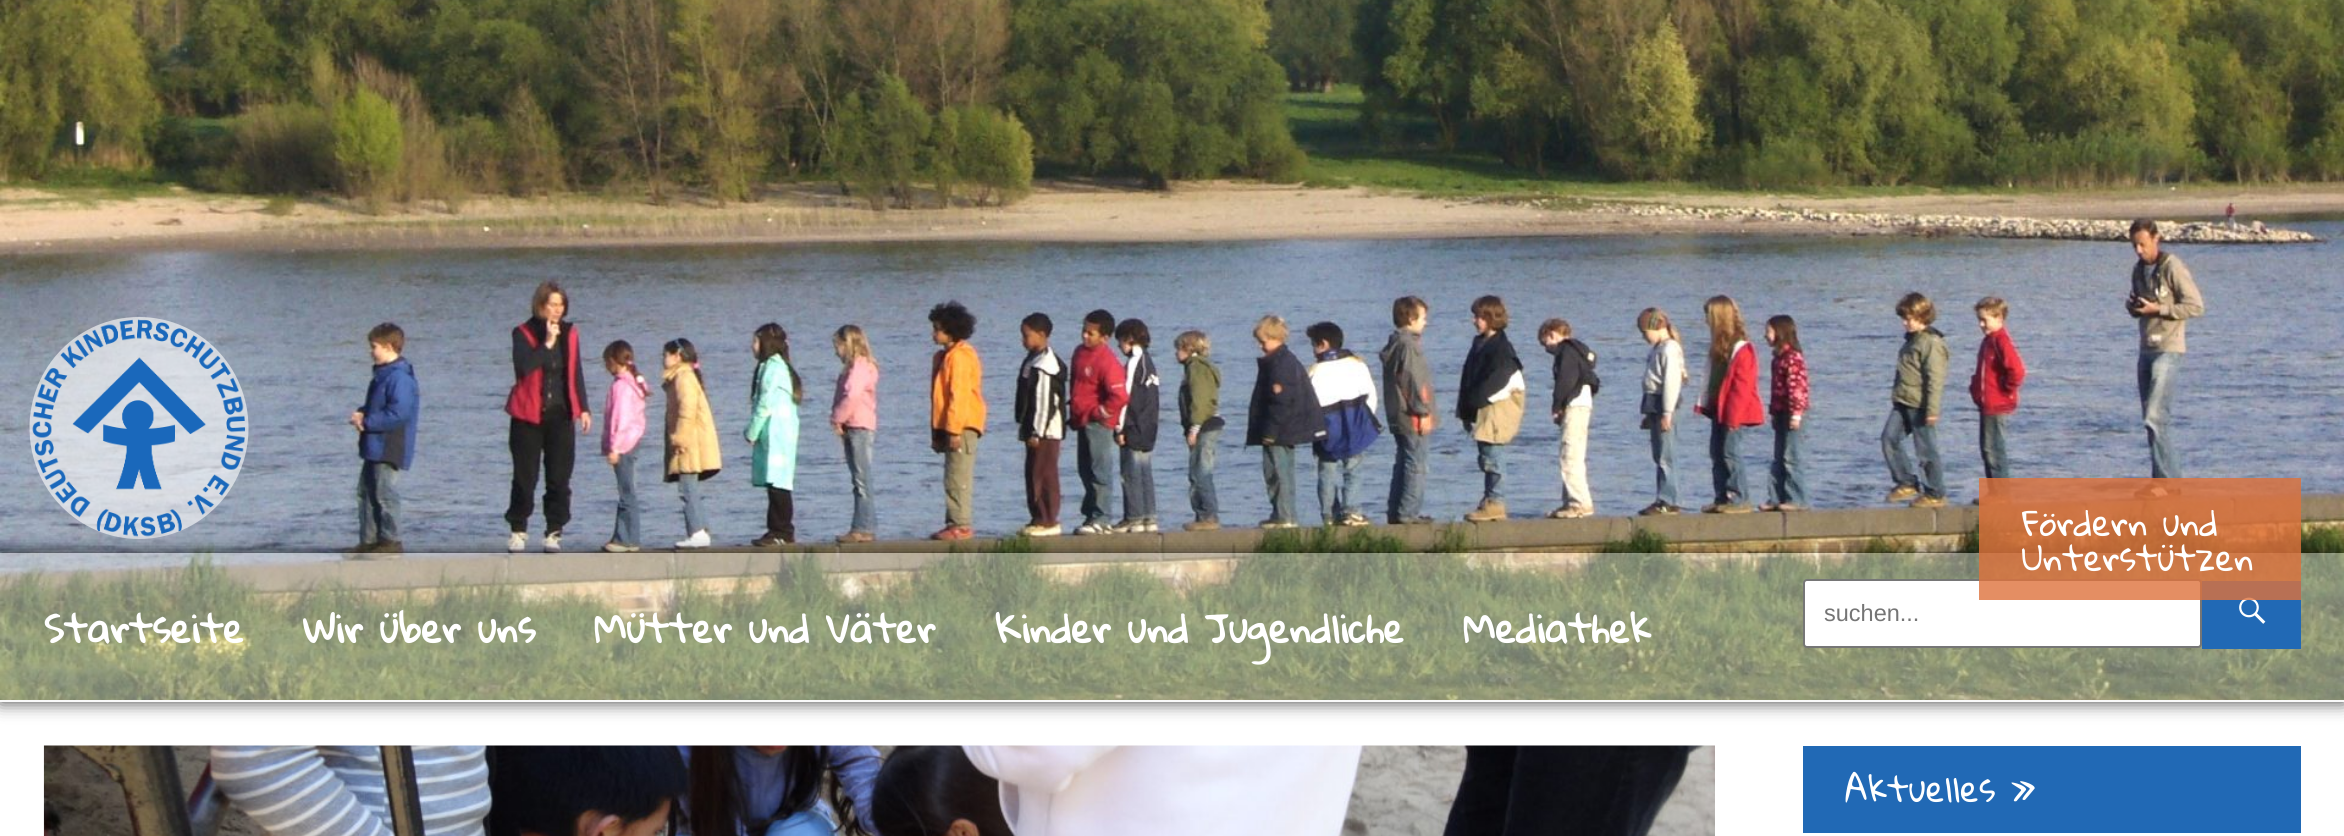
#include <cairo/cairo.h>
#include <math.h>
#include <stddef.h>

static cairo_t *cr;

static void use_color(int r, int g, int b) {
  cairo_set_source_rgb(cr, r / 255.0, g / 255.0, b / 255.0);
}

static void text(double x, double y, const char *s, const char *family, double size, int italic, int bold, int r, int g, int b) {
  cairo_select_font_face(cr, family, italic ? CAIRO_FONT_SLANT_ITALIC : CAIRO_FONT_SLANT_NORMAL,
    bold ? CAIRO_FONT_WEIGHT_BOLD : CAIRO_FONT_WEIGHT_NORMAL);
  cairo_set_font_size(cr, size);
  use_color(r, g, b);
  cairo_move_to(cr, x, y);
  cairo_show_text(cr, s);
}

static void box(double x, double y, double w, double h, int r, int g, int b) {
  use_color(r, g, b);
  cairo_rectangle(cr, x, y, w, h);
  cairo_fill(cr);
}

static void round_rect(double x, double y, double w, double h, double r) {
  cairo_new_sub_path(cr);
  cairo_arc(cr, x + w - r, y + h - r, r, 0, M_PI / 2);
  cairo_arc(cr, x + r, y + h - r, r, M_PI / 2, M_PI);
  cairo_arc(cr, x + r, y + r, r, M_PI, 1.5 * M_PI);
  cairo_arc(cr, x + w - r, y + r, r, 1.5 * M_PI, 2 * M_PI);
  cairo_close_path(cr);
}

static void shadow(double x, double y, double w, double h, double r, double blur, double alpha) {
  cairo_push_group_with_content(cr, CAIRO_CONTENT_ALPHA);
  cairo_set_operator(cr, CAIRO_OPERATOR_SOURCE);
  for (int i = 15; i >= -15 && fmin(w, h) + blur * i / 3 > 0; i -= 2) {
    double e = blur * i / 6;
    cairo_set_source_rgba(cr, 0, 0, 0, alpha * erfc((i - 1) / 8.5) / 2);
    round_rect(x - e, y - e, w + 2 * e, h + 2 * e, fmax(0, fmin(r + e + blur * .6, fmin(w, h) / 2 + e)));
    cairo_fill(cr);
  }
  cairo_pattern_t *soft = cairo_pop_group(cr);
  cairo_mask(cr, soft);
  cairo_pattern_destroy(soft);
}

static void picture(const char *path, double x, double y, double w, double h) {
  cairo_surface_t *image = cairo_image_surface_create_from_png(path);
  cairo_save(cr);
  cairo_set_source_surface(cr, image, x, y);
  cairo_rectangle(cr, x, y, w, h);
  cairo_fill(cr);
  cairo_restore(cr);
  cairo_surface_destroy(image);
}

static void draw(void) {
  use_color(255, 255, 255);
  cairo_paint(cr);
  picture("img_01.png", 0, 0, 2344, 700);
  cairo_set_source_rgba(cr, 1, 1, 1, 0.6);
  cairo_new_path(cr);
  cairo_move_to(cr, 139, 317);
  cairo_curve_to(cr, 199.5, 317, 248.5, 366.5, 248.5, 428);
  cairo_curve_to(cr, 248.5, 489.5, 199.5, 539, 139, 539);
  cairo_curve_to(cr, 78.5, 539, 29.5, 489.5, 29.5, 428);
  cairo_curve_to(cr, 29.5, 366.5, 78.5, 317, 139, 317);
  cairo_close_path(cr);
  cairo_fill(cr);
  picture("img_02.png", 32, 319, 213, 218);
  cairo_save(cr);
  cairo_set_fill_rule(cr, CAIRO_FILL_RULE_EVEN_ODD);
  cairo_new_path(cr);
  cairo_move_to(cr, 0, 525);
  cairo_line_to(cr, 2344, 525);
  cairo_line_to(cr, 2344, 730);
  cairo_line_to(cr, 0, 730);
  cairo_close_path(cr);
  cairo_move_to(cr, 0, 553);
  cairo_line_to(cr, 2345, 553);
  cairo_line_to(cr, 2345, 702);
  cairo_line_to(cr, 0, 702);
  cairo_close_path(cr);
  cairo_clip(cr);
  use_color(0, 0, 0);
  shadow(0, 553, 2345, 149, 0, 9, 0.75);
  cairo_restore(cr);
  cairo_set_source_rgba(cr, 0.941, 0.941, 0.941, 0.4);
  cairo_rectangle(cr, 0, 553, 2344, 149);
  cairo_fill(cr);
  use_color(255, 255, 255);
  round_rect(1804, 580, 397, 67, 3);
  cairo_fill_preserve(cr);
  use_color(118, 118, 118);
  cairo_stroke(cr);
  box(2202, 581, 99, 68, 33, 105, 181);
  picture("img_03.png", 2239, 597, 27, 27);
  cairo_set_source_rgba(cr, 0.867, 0.447, 0.235, 0.8);
  cairo_rectangle(cr, 1979, 478, 322, 122);
  cairo_fill(cr);
  picture("img_04.png", 43, 745, 1672, 91);
  box(1803, 746, 498, 87, 33, 105, 181);
  text(2022, 536, "Fördern und", "Gloria Hallelujah", 34.25, 0, 0, 255, 255, 255);
  text(2022, 571, "Unterstützen", "Gloria Hallelujah", 34.25, 0, 0, 255, 255, 255);
  text(44, 643, "Startseite", "Gloria Hallelujah", 37.6, 0, 1, 255, 255, 255);
  text(303, 643, "Wir über uns", "Gloria Hallelujah", 37.6, 0, 1, 255, 255, 255);
  text(594, 643, "Mütter und Väter", "Gloria Hallelujah", 37.6, 0, 1, 255, 255, 255);
  text(995, 643, "Kinder und Jugendliche", "Gloria Hallelujah", 37.6, 0, 1, 255, 255, 255);
  text(1463, 643, "Mediathek", "Gloria Hallelujah", 37.6, 0, 1, 255, 255, 255);
  text(1824, 621, "suchen...", "Liberation Sans", 23.5, 0, 0, 117, 117, 117);
  text(1845, 802, "Aktuelles »", "Gloria Hallelujah", 34.25, 0, 0, 255, 255, 255);
}

int main(void) {
  cairo_surface_t *surface = cairo_image_surface_create(CAIRO_FORMAT_RGB24, 2344, 836);
  cr = cairo_create(surface);
  cairo_font_options_t *options = cairo_font_options_create();
  cairo_font_options_set_hint_metrics(options, CAIRO_HINT_METRICS_OFF);
  cairo_font_options_set_hint_style(options, CAIRO_HINT_STYLE_NONE);
  cairo_set_font_options(cr, options);
  cairo_set_miter_limit(cr, 4);
  draw();
  cairo_surface_write_to_png(surface, "out.png");
  cairo_font_options_destroy(options);
  cairo_destroy(cr);
  cairo_surface_destroy(surface);
  return 0;
}
